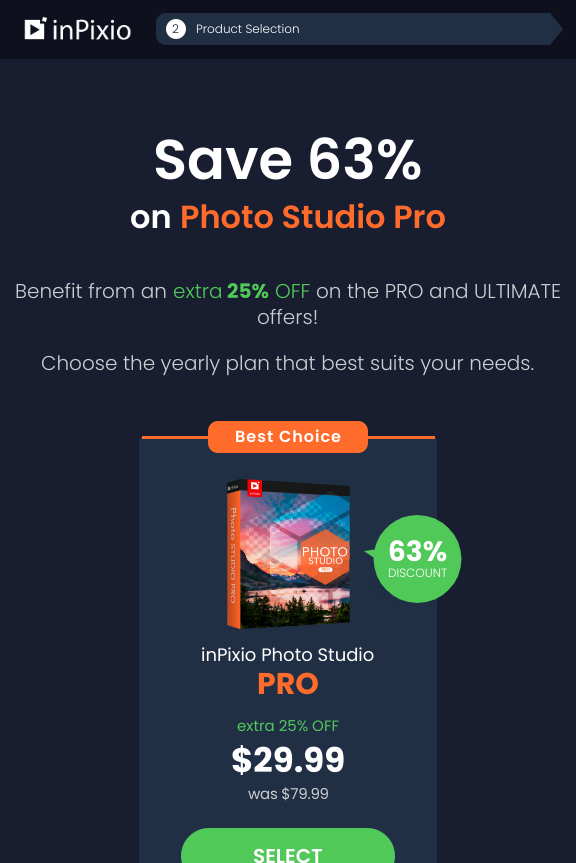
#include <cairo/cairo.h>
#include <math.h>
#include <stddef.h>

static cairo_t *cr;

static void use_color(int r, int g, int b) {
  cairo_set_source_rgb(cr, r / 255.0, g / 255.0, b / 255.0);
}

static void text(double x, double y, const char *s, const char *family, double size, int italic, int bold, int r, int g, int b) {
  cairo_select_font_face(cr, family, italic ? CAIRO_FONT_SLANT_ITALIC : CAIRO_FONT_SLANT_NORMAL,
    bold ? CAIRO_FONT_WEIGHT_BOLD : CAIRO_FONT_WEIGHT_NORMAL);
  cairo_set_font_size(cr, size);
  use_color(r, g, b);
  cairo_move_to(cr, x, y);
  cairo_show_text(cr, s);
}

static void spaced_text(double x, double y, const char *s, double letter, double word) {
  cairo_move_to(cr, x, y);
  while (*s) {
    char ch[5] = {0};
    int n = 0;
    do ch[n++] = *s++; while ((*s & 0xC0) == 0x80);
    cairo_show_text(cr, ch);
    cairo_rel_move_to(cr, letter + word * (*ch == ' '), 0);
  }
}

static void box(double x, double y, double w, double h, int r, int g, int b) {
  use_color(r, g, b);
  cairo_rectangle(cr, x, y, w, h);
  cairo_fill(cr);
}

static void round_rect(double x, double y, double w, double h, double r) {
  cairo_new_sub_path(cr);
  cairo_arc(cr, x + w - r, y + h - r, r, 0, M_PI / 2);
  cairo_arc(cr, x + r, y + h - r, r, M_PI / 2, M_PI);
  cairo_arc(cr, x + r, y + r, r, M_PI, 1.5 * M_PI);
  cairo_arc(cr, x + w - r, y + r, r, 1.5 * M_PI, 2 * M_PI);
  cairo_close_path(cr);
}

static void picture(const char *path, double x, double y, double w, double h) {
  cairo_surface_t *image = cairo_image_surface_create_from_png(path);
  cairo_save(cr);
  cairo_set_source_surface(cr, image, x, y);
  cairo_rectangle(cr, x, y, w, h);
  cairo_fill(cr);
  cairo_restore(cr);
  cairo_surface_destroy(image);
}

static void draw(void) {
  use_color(14, 17, 29);
  cairo_paint(cr);
  picture("img_01.png", 24, 16, 107, 24);
  use_color(33, 47, 69);
  cairo_new_path(cr);
  cairo_move_to(cr, 166, 13);
  cairo_line_to(cr, 551, 13);
  cairo_line_to(cr, 551, 45);
  cairo_line_to(cr, 166, 45);
  cairo_curve_to(cr, 160.5, 45, 156, 40.5, 156, 35);
  cairo_line_to(cr, 156, 23);
  cairo_curve_to(cr, 156, 17.5, 160.5, 13, 166, 13);
  cairo_close_path(cr);
  cairo_fill(cr);
  use_color(255, 255, 255);
  cairo_arc(cr, 176, 29, 10, 0, 2 * M_PI);
  cairo_fill(cr);
  use_color(33, 47, 69);
  cairo_new_path(cr);
  cairo_move_to(cr, 550, 45);
  cairo_line_to(cr, 550, 13);
  cairo_line_to(cr, 563, 29);
  cairo_close_path(cr);
  cairo_fill(cr);
  box(0, 59, 576, 804, 24, 30, 48);
  use_color(33, 47, 69);
  round_rect(139, 436, 298, 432, 5);
  cairo_fill(cr);
  box(142, 436, 293, 3, 255, 107, 42);
  round_rect(208, 421, 160, 32, 10);
  cairo_fill(cr);
  picture("img_02.png", 227, 479, 123, 150);
  picture("img_03.png", 364, 515, 98, 88);
  use_color(81, 201, 89);
  round_rect(181, 828, 214, 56, 28);
  cairo_fill(cr);
  text(172, 33, "2", "Poppins Light", 12, 0, 0, 24, 30, 48);
  text(196, 33, "Product Selection", "Poppins Light", 12, 0, 0, 255, 255, 255);
  text(153, 179, "Save 63%", "Poppins SemiBold", 56, 0, 0, 255, 255, 255);
  text(130, 228, "on", "Poppins SemiBold", 32, 0, 0, 255, 255, 255);
  text(180, 228, "Photo Studio Pro", "Poppins SemiBold", 32, 0, 0, 255, 107, 42);
  text(15, 298, "Benefit from an", "Poppins Light", 20, 0, 0, 204, 206, 210);
  text(173, 298, "extra", "Poppins Light", 20, 0, 0, 81, 201, 89);
  text(227, 298, "25%", "Poppins", 20, 0, 1, 81, 201, 89);
  text(275, 298, "OFF", "Poppins Light", 20, 0, 0, 81, 201, 89);
  text(316, 298, "on the PRO and ULTIMATE", "Poppins Light", 20, 0, 0, 204, 206, 210);
  text(257, 324, "offers!", "Poppins Light", 20, 0, 0, 204, 206, 210);
  text(41, 370, "Choose the yearly plan that best suits your needs.", "Poppins Light", 20, 0, 0, 204, 206, 210);
  cairo_select_font_face(cr, "Poppins SemiBold", CAIRO_FONT_SLANT_NORMAL, CAIRO_FONT_WEIGHT_NORMAL);
  cairo_set_font_size(cr, 16);
  use_color(255, 255, 255);
  spaced_text(235, 442, "Best Choice", 1, 0);
  text(388, 561, "63%", "Poppins", 28, 0, 1, 255, 255, 255);
  text(388, 577, "DISCOUNT", "Poppins Light", 12, 0, 0, 255, 255, 255);
  text(201, 661, "inPixio Photo Studio", "Poppins", 18, 0, 0, 255, 255, 255);
  text(257, 694, "PRO", "Poppins", 30, 0, 1, 255, 107, 42);
  text(237, 731, "extra 25% OFF", "Poppins", 15, 0, 0, 81, 201, 89);
  text(231, 772, "$29.99", "Poppins", 34, 0, 1, 255, 255, 255);
  cairo_select_font_face(cr, "Poppins", CAIRO_FONT_SLANT_NORMAL, CAIRO_FONT_WEIGHT_NORMAL);
  cairo_set_font_size(cr, 15);
  use_color(204, 206, 210);
  spaced_text(248, 799, "was $79.99", -0.25, 0);
  text(253, 863, "SELECT", "Poppins SemiBold", 20, 0, 0, 255, 255, 255);
}

int main(void) {
  cairo_surface_t *surface = cairo_image_surface_create(CAIRO_FORMAT_RGB24, 576, 863);
  cr = cairo_create(surface);
  cairo_font_options_t *options = cairo_font_options_create();
  cairo_font_options_set_hint_metrics(options, CAIRO_HINT_METRICS_OFF);
  cairo_font_options_set_hint_style(options, CAIRO_HINT_STYLE_NONE);
  cairo_set_font_options(cr, options);
  cairo_set_miter_limit(cr, 4);
  draw();
  cairo_surface_write_to_png(surface, "out.png");
  cairo_font_options_destroy(options);
  cairo_destroy(cr);
  cairo_surface_destroy(surface);
  return 0;
}
